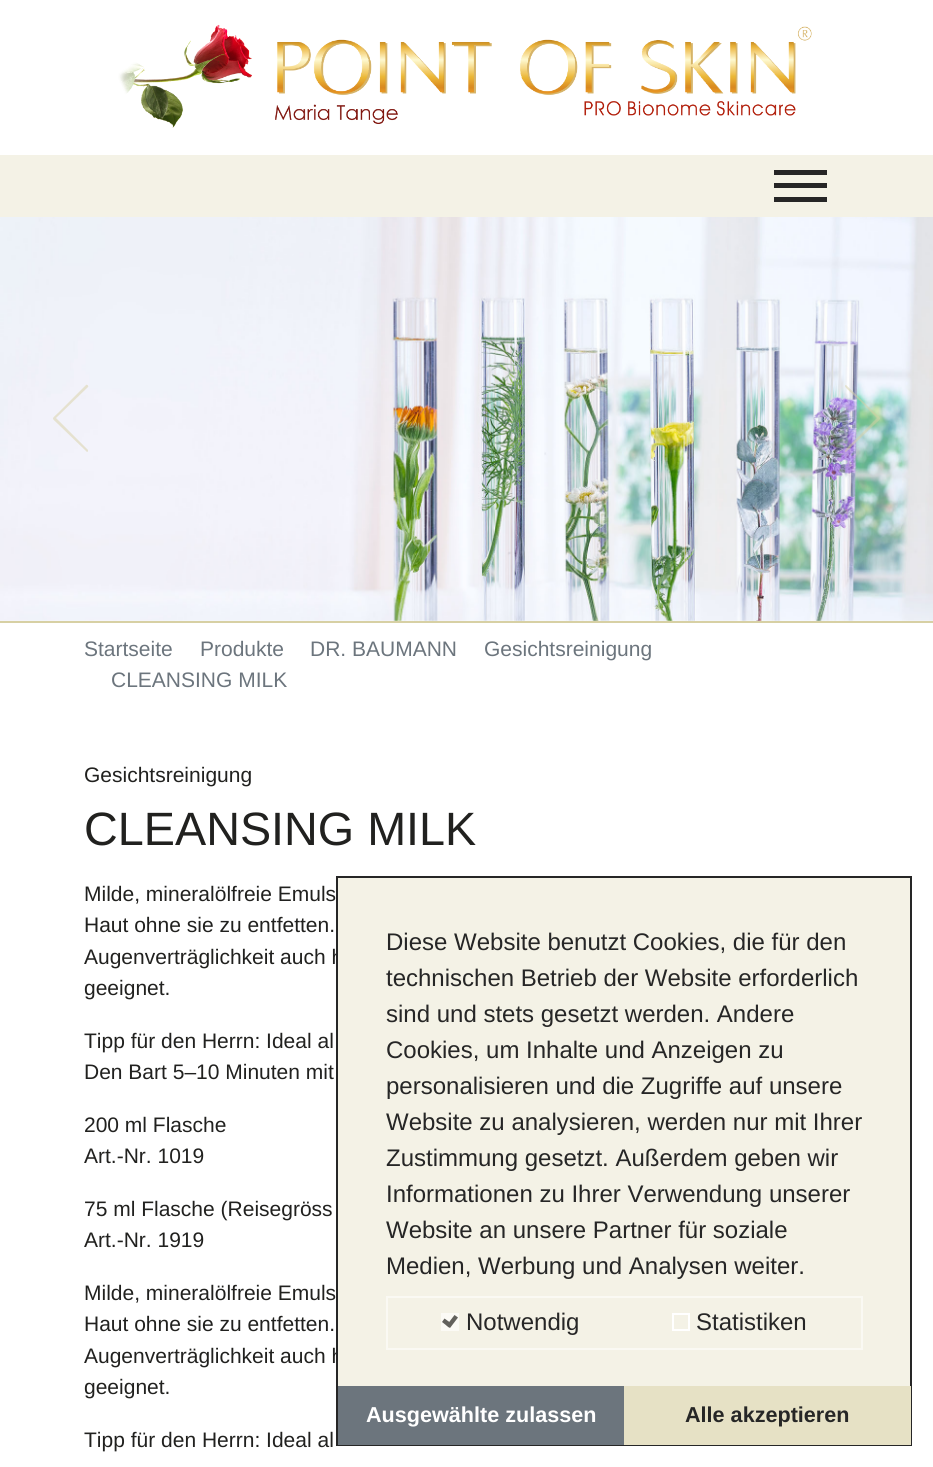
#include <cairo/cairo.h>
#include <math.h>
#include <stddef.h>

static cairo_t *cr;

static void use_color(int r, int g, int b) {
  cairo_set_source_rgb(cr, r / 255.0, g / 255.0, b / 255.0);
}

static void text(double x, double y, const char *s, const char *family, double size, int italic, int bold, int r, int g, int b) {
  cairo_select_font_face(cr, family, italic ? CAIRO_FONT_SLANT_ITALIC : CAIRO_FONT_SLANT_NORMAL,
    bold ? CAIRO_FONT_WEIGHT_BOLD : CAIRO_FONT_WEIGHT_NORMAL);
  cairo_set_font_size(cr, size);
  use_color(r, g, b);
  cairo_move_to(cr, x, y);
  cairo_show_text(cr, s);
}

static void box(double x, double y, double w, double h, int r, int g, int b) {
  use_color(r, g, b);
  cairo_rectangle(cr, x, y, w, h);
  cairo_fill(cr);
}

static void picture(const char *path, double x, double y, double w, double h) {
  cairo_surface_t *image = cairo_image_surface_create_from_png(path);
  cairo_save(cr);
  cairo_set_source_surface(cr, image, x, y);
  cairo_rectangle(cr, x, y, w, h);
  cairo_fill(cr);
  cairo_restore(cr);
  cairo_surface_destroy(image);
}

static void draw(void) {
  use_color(255, 255, 255);
  cairo_paint(cr);
  picture("img_01.png", 118, 24, 694, 104);
  box(0, 155, 933, 62, 244, 242, 230);
  box(774, 170, 53, 5, 38, 38, 38);
  box(774, 183, 53, 5, 38, 38, 38);
  box(774, 197, 53, 5, 38, 38, 38);
  box(0, 621, 933, 2, 215, 208, 164);
  picture("img_02.png", 0, 217, 933, 404);
  use_color(229, 225, 207);
  cairo_new_path(cr);
  cairo_move_to(cr, 87, 452);
  cairo_line_to(cr, 59, 425);
  cairo_curve_to(cr, 51, 417, 51, 420, 59, 412);
  cairo_line_to(cr, 86, 385);
  cairo_curve_to(cr, 87, 384, 89, 386, 88, 387);
  cairo_line_to(cr, 56, 418);
  cairo_line_to(cr, 88, 450);
  cairo_curve_to(cr, 88, 451, 88, 452, 87, 452);
  cairo_close_path(cr);
  cairo_fill(cr);
  cairo_set_source_rgba(cr, 0.843, 0.816, 0.643, 0.5);
  cairo_new_path(cr);
  cairo_move_to(cr, 846, 452);
  cairo_curve_to(cr, 845, 452, 845, 451, 845, 450);
  cairo_line_to(cr, 877, 418);
  cairo_line_to(cr, 856, 397);
  cairo_curve_to(cr, 855, 396, 845, 388, 845, 386);
  cairo_curve_to(cr, 845, 385, 846, 385, 846, 385);
  cairo_line_to(cr, 874, 412);
  cairo_curve_to(cr, 882, 420, 882, 417, 874, 425);
  cairo_close_path(cr);
  cairo_fill(cr);
  text(84, 656, "Startseite", "Liberation Sans", 21, 0, 0, 108, 117, 125);
  text(200, 656, "Produkte", "Liberation Sans", 21, 0, 0, 108, 117, 125);
  text(310, 656, "DR. BAUMANN", "Liberation Sans", 21, 0, 0, 108, 117, 125);
  text(484, 656, "Gesichtsreinigung", "Liberation Sans", 21, 0, 0, 108, 117, 125);
  text(111, 687, "CLEANSING MILK", "Liberation Sans", 21, 0, 0, 108, 117, 125);
  text(84, 782, "Gesichtsreinigung", "Liberation Sans", 21, 0, 0, 33, 33, 31);
  text(84, 845, "CLEANSING MILK", "Liberation Sans", 46.75, 0, 0, 33, 33, 31);
  text(84, 901, "Milde, mineralölfreie Emuls", "Liberation Sans", 21, 0, 0, 33, 33, 31);
  text(84, 932, "Haut ohne sie zu entfetten.", "Liberation Sans", 21, 0, 0, 33, 33, 31);
  text(84, 964, "Augenverträglichkeit auch h", "Liberation Sans", 21, 0, 0, 33, 33, 31);
  text(84, 995, "geeignet.", "Liberation Sans", 21, 0, 0, 33, 33, 31);
  text(84, 1048, "Tipp für den Herrn: Ideal al", "Liberation Sans", 21, 0, 0, 33, 33, 31);
  text(84, 1079, "Den Bart 5–10 Minuten mit", "Liberation Sans", 21, 0, 0, 33, 33, 31);
  text(84, 1132, "200 ml Flasche", "Liberation Sans", 21, 0, 0, 33, 33, 31);
  text(84, 1163, "Art.-Nr. 1019", "Liberation Sans", 21, 0, 0, 33, 33, 31);
  text(84, 1216, "75 ml Flasche (Reisegröss", "Liberation Sans", 21, 0, 0, 33, 33, 31);
  text(84, 1247, "Art.-Nr. 1919", "Liberation Sans", 21, 0, 0, 33, 33, 31);
  text(84, 1300, "Milde, mineralölfreie Emuls", "Liberation Sans", 21, 0, 0, 33, 33, 31);
  text(84, 1331, "Haut ohne sie zu entfetten.", "Liberation Sans", 21, 0, 0, 33, 33, 31);
  text(84, 1363, "Augenverträglichkeit auch h", "Liberation Sans", 21, 0, 0, 33, 33, 31);
  text(84, 1394, "geeignet.", "Liberation Sans", 21, 0, 0, 33, 33, 31);
  text(84, 1447, "Tipp für den Herrn: Ideal al", "Liberation Sans", 21, 0, 0, 33, 33, 31);
  box(338, 878, 572, 508, 244, 242, 230);
  cairo_rectangle(cr, 337, 877, 574, 568);
  use_color(38, 38, 38);
  cairo_stroke(cr);
  text(386, 950, "Diese Website benutzt Cookies, die für den", "Liberation Sans", 24, 0, 0, 38, 38, 38);
  text(386, 986, "technischen Betrieb der Website erforderlich", "Liberation Sans", 24, 0, 0, 38, 38, 38);
  text(386, 1022, "sind und stets gesetzt werden. Andere", "Liberation Sans", 24, 0, 0, 38, 38, 38);
  text(386, 1058, "Cookies, um Inhalte und Anzeigen zu", "Liberation Sans", 24, 0, 0, 38, 38, 38);
  text(386, 1094, "personalisieren und die Zugriffe auf unsere", "Liberation Sans", 24, 0, 0, 38, 38, 38);
  text(386, 1130, "Website zu analysieren, werden nur mit Ihrer", "Liberation Sans", 24, 0, 0, 38, 38, 38);
  text(386, 1166, "Zustimmung gesetzt. Außerdem geben wir", "Liberation Sans", 24, 0, 0, 38, 38, 38);
  text(386, 1202, "Informationen zu Ihrer Verwendung unserer", "Liberation Sans", 24, 0, 0, 38, 38, 38);
  text(386, 1238, "Website an unsere Partner für soziale", "Liberation Sans", 24, 0, 0, 38, 38, 38);
  text(386, 1274, "Medien, Werbung und Analysen weiter.", "Liberation Sans", 24, 0, 0, 38, 38, 38);
  cairo_rectangle(cr, 387, 1297, 475, 52);
  use_color(250, 249, 243);
  cairo_stroke(cr);
  box(441, 1313, 18, 18, 251, 250, 245);
  use_color(98, 97, 92);
  cairo_new_path(cr);
  cairo_move_to(cr, 444.5, 1318.5);
  cairo_line_to(cr, 452, 1324);
  cairo_line_to(cr, 449, 1327.5);
  cairo_line_to(cr, 442, 1322);
  cairo_close_path(cr);
  cairo_fill(cr);
  cairo_new_path(cr);
  cairo_move_to(cr, 446.5, 1325.5);
  cairo_line_to(cr, 454.5, 1315);
  cairo_line_to(cr, 458, 1317.5);
  cairo_line_to(cr, 450, 1328);
  cairo_close_path(cr);
  cairo_fill(cr);
  text(466, 1330, "Notwendig", "Liberation Sans", 24, 0, 0, 38, 38, 38);
  cairo_rectangle(cr, 673, 1314, 16, 16);
  use_color(255, 255, 255);
  cairo_stroke(cr);
  text(696, 1330, "Statistiken", "Liberation Sans", 24, 0, 0, 38, 38, 38);
  box(338, 1386, 286, 59, 108, 117, 125);
  text(366, 1422, "Ausgewählte zulassen", "Liberation Sans", 21.6, 0, 1, 255, 255, 255);
  box(624, 1386, 287, 59, 230, 225, 197);
  text(685, 1422, "Alle akzeptieren", "Liberation Sans", 21.6, 0, 1, 38, 38, 38);
}

int main(void) {
  cairo_surface_t *surface = cairo_image_surface_create(CAIRO_FORMAT_RGB24, 933, 1467);
  cr = cairo_create(surface);
  cairo_font_options_t *options = cairo_font_options_create();
  cairo_font_options_set_hint_metrics(options, CAIRO_HINT_METRICS_OFF);
  cairo_font_options_set_hint_style(options, CAIRO_HINT_STYLE_NONE);
  cairo_set_font_options(cr, options);
  cairo_set_miter_limit(cr, 4);
  draw();
  cairo_surface_write_to_png(surface, "out.png");
  cairo_font_options_destroy(options);
  cairo_destroy(cr);
  cairo_surface_destroy(surface);
  return 0;
}
